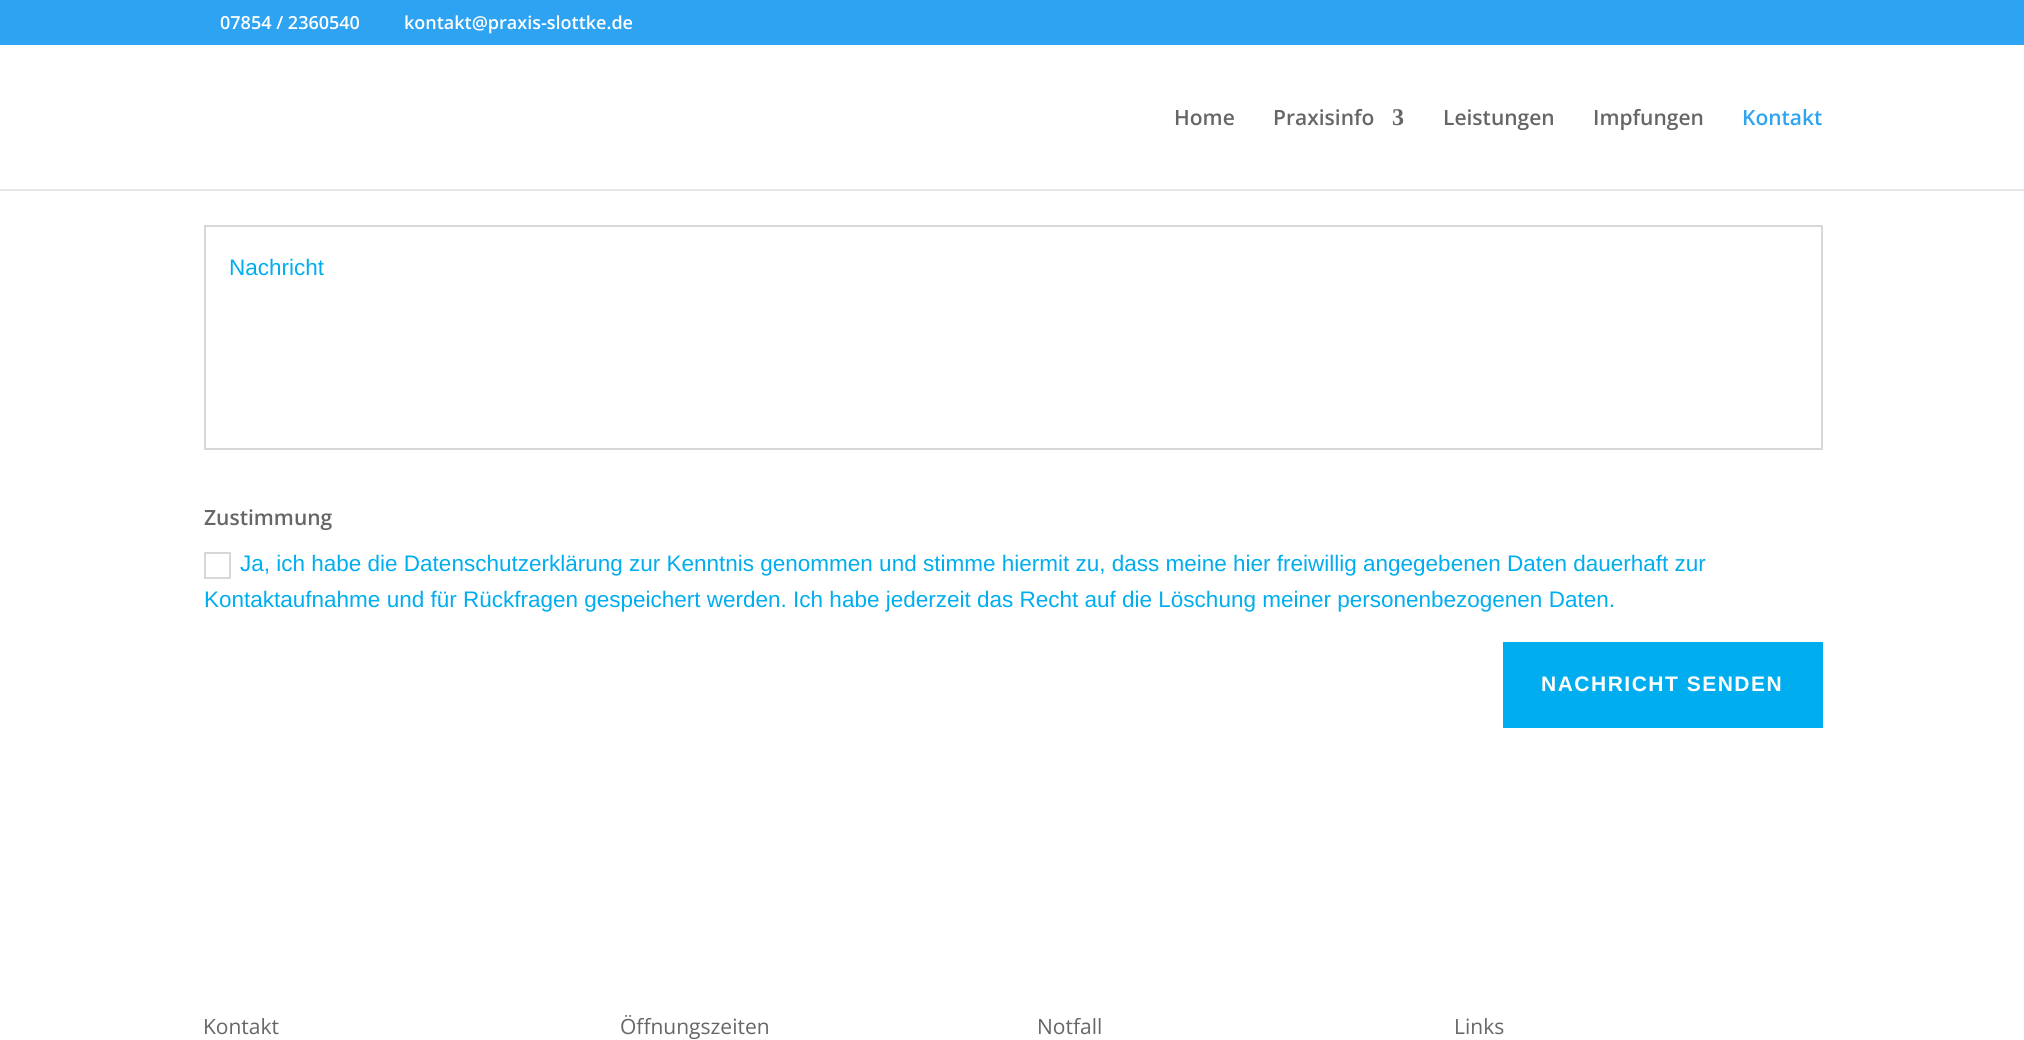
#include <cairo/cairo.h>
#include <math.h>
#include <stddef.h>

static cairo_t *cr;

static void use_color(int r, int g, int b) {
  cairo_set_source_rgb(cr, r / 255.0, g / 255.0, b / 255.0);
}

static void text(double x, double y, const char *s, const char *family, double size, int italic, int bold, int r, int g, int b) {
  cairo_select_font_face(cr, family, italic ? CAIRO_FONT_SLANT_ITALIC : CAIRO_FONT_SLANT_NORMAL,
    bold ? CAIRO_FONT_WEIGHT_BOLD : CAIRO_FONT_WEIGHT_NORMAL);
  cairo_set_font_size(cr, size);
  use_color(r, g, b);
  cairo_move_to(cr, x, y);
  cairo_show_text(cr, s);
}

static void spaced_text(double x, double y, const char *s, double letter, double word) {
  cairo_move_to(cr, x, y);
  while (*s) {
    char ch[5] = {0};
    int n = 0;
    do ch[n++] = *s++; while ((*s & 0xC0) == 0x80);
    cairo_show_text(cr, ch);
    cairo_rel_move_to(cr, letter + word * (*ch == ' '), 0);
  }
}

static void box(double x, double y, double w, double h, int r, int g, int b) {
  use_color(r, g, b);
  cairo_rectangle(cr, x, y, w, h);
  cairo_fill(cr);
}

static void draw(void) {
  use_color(255, 255, 255);
  cairo_paint(cr);
  box(0, 0, 2024, 45, 46, 163, 242);
  box(0, 189, 2024, 2, 230, 230, 230);
  cairo_rectangle(cr, 205, 226, 1617, 223);
  use_color(215, 215, 217);
  cairo_stroke(cr);
  cairo_rectangle(cr, 205, 553, 25, 25);
  cairo_stroke(cr);
  box(1503, 642, 320, 86, 0, 173, 238);
  text(220, 29, "07854 / 2360540", "Open Sans SemiBold", 18, 0, 0, 255, 255, 255);
  text(404, 29, "kontakt@praxis-slottke.de", "Open Sans SemiBold", 18, 0, 0, 255, 255, 255);
  text(1174, 125, "Home", "Open Sans SemiBold", 21, 0, 0, 102, 102, 102);
  text(1273, 125, "Praxisinfo", "Open Sans SemiBold", 21, 0, 0, 102, 102, 102);
  text(1392, 125, "3", "Liberation Serif", 24, 0, 1, 102, 102, 102);
  text(1443, 125, "Leistungen", "Open Sans SemiBold", 21, 0, 0, 102, 102, 102);
  text(1593, 125, "Impfungen", "Open Sans SemiBold", 21, 0, 0, 102, 102, 102);
  text(1742, 125, "Kontakt", "Open Sans SemiBold", 21, 0, 0, 46, 163, 242);
  text(229, 275, "Nachricht", "Liberation Sans", 22.5, 0, 0, 0, 173, 238);
  text(204, 525, "Zustimmung", "Open Sans SemiBold", 21, 0, 0, 102, 102, 102);
  text(240, 571, "Ja, ich habe die Datenschutzerklärung zur Kenntnis genommen und stimme hiermit zu, dass meine hier freiwillig angegebenen Daten dauerhaft zur", "Liberation Sans", 22.5, 0, 0, 0, 173, 238);
  text(204, 607, "Kontaktaufnahme und für Rückfragen gespeichert werden. Ich habe jederzeit das Recht auf die Löschung meiner personenbezogenen Daten.", "Liberation Sans", 22.5, 0, 0, 0, 173, 238);
  cairo_select_font_face(cr, "Liberation Sans", CAIRO_FONT_SLANT_NORMAL, CAIRO_FONT_WEIGHT_BOLD);
  cairo_set_font_size(cr, 21);
  use_color(255, 255, 255);
  spaced_text(1541, 691, "NACHRICHT SENDEN", 1.5, 0);
  text(203, 1034, "Kontakt", "Open Sans", 21, 0, 0, 102, 102, 102);
  text(620, 1034, "Öffnungszeiten", "Open Sans", 21, 0, 0, 102, 102, 102);
  text(1037, 1034, "Notfall", "Open Sans", 21, 0, 0, 102, 102, 102);
  text(1454, 1034, "Links", "Open Sans", 21, 0, 0, 102, 102, 102);
}

int main(void) {
  cairo_surface_t *surface = cairo_image_surface_create(CAIRO_FORMAT_RGB24, 2024, 1040);
  cr = cairo_create(surface);
  cairo_font_options_t *options = cairo_font_options_create();
  cairo_font_options_set_hint_metrics(options, CAIRO_HINT_METRICS_OFF);
  cairo_font_options_set_hint_style(options, CAIRO_HINT_STYLE_NONE);
  cairo_set_font_options(cr, options);
  cairo_set_miter_limit(cr, 4);
  draw();
  cairo_surface_write_to_png(surface, "out.png");
  cairo_font_options_destroy(options);
  cairo_destroy(cr);
  cairo_surface_destroy(surface);
  return 0;
}
